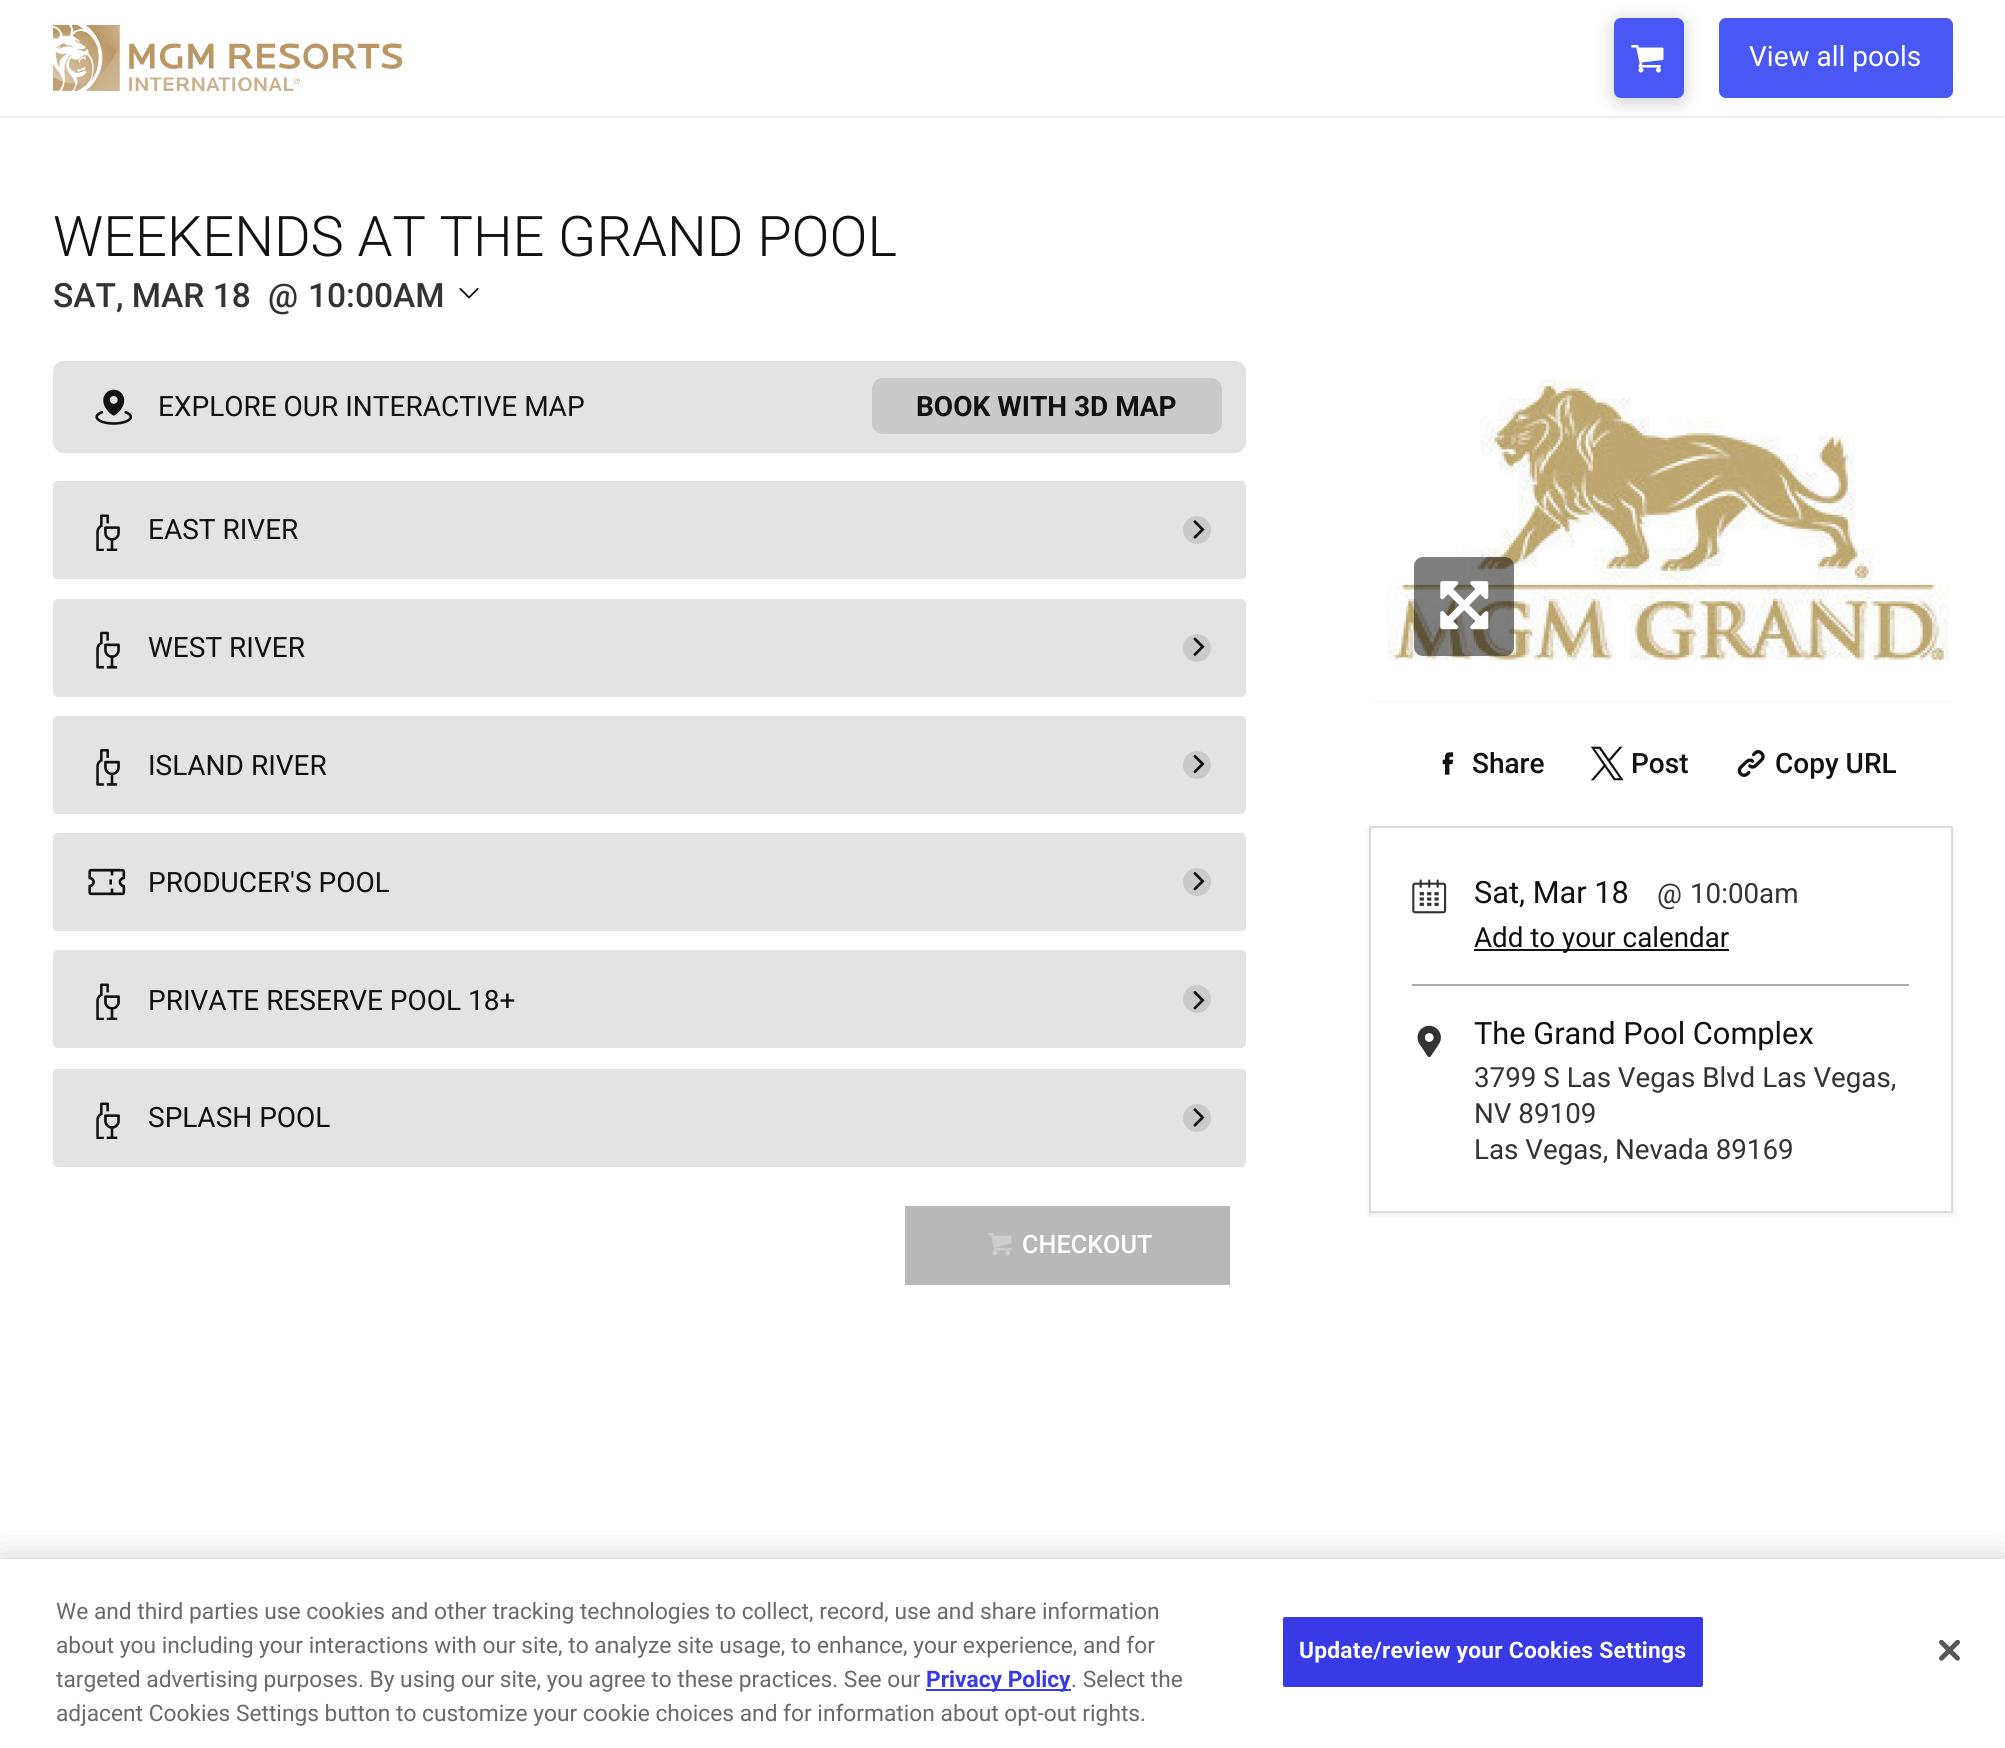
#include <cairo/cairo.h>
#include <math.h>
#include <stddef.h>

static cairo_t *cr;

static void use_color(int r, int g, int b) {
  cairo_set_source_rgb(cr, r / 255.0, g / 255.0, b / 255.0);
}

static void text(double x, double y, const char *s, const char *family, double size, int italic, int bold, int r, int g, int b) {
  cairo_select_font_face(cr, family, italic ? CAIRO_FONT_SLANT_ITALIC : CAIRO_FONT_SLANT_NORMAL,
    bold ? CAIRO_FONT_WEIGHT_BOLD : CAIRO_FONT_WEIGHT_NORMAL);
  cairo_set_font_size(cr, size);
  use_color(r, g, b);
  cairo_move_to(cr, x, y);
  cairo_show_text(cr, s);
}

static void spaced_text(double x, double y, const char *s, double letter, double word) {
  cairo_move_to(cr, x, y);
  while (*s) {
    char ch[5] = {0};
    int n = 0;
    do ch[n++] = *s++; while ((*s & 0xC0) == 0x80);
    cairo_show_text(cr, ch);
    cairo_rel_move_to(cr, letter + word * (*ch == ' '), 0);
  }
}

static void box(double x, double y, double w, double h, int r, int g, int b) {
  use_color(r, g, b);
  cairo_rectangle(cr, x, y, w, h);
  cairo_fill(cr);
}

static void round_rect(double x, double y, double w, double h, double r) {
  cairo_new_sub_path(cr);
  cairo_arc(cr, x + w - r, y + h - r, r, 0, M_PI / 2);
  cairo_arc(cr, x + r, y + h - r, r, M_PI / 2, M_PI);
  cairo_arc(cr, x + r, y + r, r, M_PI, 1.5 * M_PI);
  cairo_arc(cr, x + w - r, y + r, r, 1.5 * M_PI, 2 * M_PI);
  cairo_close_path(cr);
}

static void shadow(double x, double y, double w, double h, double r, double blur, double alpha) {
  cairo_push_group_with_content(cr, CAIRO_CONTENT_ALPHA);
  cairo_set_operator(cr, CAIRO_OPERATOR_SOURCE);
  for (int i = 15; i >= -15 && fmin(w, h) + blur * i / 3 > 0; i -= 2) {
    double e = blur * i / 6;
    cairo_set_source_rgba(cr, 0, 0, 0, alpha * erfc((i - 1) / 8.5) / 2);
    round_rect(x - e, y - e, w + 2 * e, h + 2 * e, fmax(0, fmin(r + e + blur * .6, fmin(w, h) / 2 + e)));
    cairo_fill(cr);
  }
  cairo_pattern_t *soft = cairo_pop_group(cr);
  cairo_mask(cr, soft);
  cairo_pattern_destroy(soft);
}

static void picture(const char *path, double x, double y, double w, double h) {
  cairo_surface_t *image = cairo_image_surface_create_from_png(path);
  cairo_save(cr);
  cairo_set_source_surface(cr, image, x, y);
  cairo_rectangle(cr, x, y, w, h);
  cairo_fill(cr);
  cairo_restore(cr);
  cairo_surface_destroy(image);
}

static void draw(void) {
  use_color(255, 255, 255);
  cairo_paint(cr);
  cairo_save(cr);
  cairo_set_fill_rule(cr, CAIRO_FILL_RULE_EVEN_ODD);
  cairo_new_path(cr);
  cairo_move_to(cr, 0, 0);
  cairo_line_to(cr, 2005, 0);
  cairo_line_to(cr, 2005, 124);
  cairo_line_to(cr, 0, 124);
  cairo_close_path(cr);
  cairo_move_to(cr, 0, 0);
  cairo_line_to(cr, 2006, 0);
  cairo_line_to(cr, 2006, 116);
  cairo_line_to(cr, 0, 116);
  cairo_close_path(cr);
  cairo_clip(cr);
  use_color(0, 0, 0);
  shadow(0, 2, 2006, 115, 0, 2, 0.1);
  cairo_restore(cr);
  picture("img_01.png", 53, 25, 350, 66);
  use_color(0, 0, 0);
  shadow(1614, 21, 70, 81, 7, 9, 0.2);
  use_color(73, 87, 244);
  round_rect(1614, 18, 70, 80, 7);
  cairo_fill(cr);
  picture("img_02.png", 1631, 45, 33, 28);
  round_rect(1719, 18, 234, 80, 7);
  cairo_fill(cr);
  picture("img_03.png", 459, 287, 20, 12);
  use_color(227, 227, 227);
  round_rect(53, 361, 1193, 92, 11);
  cairo_fill(cr);
  picture("img_04.png", 95, 389, 38, 36);
  use_color(202, 202, 202);
  round_rect(872, 378, 350, 56, 11);
  cairo_fill(cr);
  use_color(227, 227, 227);
  round_rect(53, 481, 1193, 98, 5);
  cairo_fill(cr);
  picture("img_05.png", 96, 514, 24, 37);
  use_color(202, 202, 202);
  cairo_arc(cr, 1197, 530, 14, 0, 2 * M_PI);
  cairo_fill(cr);
  picture("img_06.png", 1193, 520, 12, 19);
  use_color(227, 227, 227);
  round_rect(53, 599, 1193, 98, 5);
  cairo_fill(cr);
  picture("img_07.png", 96, 631, 24, 38);
  use_color(202, 202, 202);
  cairo_arc(cr, 1197, 648, 14, 0, 2 * M_PI);
  cairo_fill(cr);
  picture("img_08.png", 1193, 637, 12, 19);
  use_color(227, 227, 227);
  round_rect(53, 716, 1193, 98, 5);
  cairo_fill(cr);
  picture("img_09.png", 96, 749, 24, 37);
  use_color(202, 202, 202);
  cairo_arc(cr, 1197, 765, 14, 0, 2 * M_PI);
  cairo_fill(cr);
  picture("img_10.png", 1193, 754, 12, 20);
  use_color(227, 227, 227);
  round_rect(53, 833, 1193, 98, 5);
  cairo_fill(cr);
  picture("img_11.png", 88, 868, 38, 28);
  use_color(202, 202, 202);
  cairo_arc(cr, 1197, 882, 14, 0, 2 * M_PI);
  cairo_fill(cr);
  picture("img_12.png", 1193, 872, 12, 19);
  use_color(227, 227, 227);
  round_rect(53, 950, 1193, 98, 5);
  cairo_fill(cr);
  picture("img_05.png", 96, 983, 24, 37);
  use_color(202, 202, 202);
  cairo_arc(cr, 1197, 999, 14, 0, 2 * M_PI);
  cairo_fill(cr);
  picture("img_12.png", 1193, 991, 12, 19);
  use_color(227, 227, 227);
  round_rect(53, 1069, 1193, 98, 5);
  cairo_fill(cr);
  picture("img_05.png", 96, 1102, 24, 37);
  use_color(202, 202, 202);
  cairo_arc(cr, 1197, 1118, 14, 0, 2 * M_PI);
  cairo_fill(cr);
  picture("img_06.png", 1193, 1108, 12, 19);
  box(905, 1206, 325, 79, 184, 184, 184);
  picture("img_13.png", 988, 1233, 24, 23);
  box(1369, 701, 584, 1, 243, 243, 243);
  picture("img_14.png", 1369, 361, 584, 341);
  cairo_set_source_rgba(cr, 0, 0, 0, 0.5);
  round_rect(1414, 557, 100, 99, 9);
  cairo_fill(cr);
  picture("img_15.png", 1440, 581, 49, 49);
  picture("img_16.png", 1442, 752, 12, 23);
  picture("img_17.png", 1590, 746, 34, 35);
  picture("img_18.png", 1737, 750, 28, 27);
  use_color(63, 76, 96);
  shadow(1369, 828, 584, 387, 0, 2.5, 0.12);
  use_color(255, 255, 255);
  cairo_rectangle(cr, 1370, 827, 582, 385);
  cairo_fill_preserve(cr);
  use_color(220, 220, 220);
  cairo_stroke(cr);
  picture("img_19.png", 1412, 879, 35, 35);
  box(1474, 949, 255, 2, 17, 17, 17);
  box(1412, 984, 497, 2, 173, 173, 173);
  picture("img_20.png", 1417, 1025, 24, 33);
  use_color(0, 0, 0);
  shadow(0, 1559, 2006, 189, 0, 16, 0.2);
  box(0, 1559, 2005, 189, 255, 255, 255);
  box(926, 1689, 145, 2, 55, 58, 229);
  round_rect(1282, 1616, 422, 72, 3);
  cairo_fill_preserve(cr);
  use_color(255, 255, 255);
  cairo_stroke(cr);
  picture("img_21.png", 1939, 1640, 21, 21);
  text(1749, 66, "View all pools", "Roboto", 28, 0, 0, 255, 255, 255);
  text(53, 256, "WEEKENDS AT THE GRAND POOL", "Roboto Light", 56, 0, 0, 17, 17, 17);
  text(53, 307, "SAT, MAR 18", "Roboto Medium", 33.5, 0, 0, 51, 51, 51);
  text(268, 307, "@", "Roboto Medium", 33.5, 0, 0, 51, 51, 51);
  text(308, 307, "10:00AM", "Roboto Medium", 33.5, 0, 0, 51, 51, 51);
  text(158, 416, "EXPLORE OUR INTERACTIVE MAP", "Roboto", 28, 0, 0, 17, 17, 17);
  text(916, 416, "BOOK WITH 3D MAP", "Roboto", 28, 0, 1, 17, 17, 17);
  text(148, 539, "EAST RIVER", "Roboto", 28, 0, 0, 17, 17, 17);
  text(148, 657, "WEST RIVER", "Roboto", 28, 0, 0, 17, 17, 17);
  text(148, 775, "ISLAND RIVER", "Roboto", 28, 0, 0, 17, 17, 17);
  text(148, 892, "PRODUCER'S POOL", "Roboto", 28, 0, 0, 17, 17, 17);
  text(148, 1010, "PRIVATE RESERVE POOL 18+", "Roboto", 28, 0, 0, 17, 17, 17);
  text(148, 1127, "SPLASH POOL", "Roboto", 28, 0, 0, 17, 17, 17);
  text(1022, 1253, "CHECKOUT", "Roboto Medium", 25.25, 0, 0, 255, 255, 255);
  text(1472, 773, "Share", "Roboto Medium", 28, 0, 0, 17, 17, 17);
  text(1631, 773, "Post", "Roboto Medium", 28, 0, 0, 17, 17, 17);
  text(1775, 773, "Copy URL", "Roboto Medium", 28, 0, 0, 17, 17, 17);
  text(1474, 903, "Sat, Mar 18", "Roboto", 30.75, 0, 0, 17, 17, 17);
  text(1657, 903, "@", "Roboto", 27.75, 0, 0, 51, 51, 51);
  text(1690, 903, "10:00am", "Roboto", 27.75, 0, 0, 51, 51, 51);
  text(1474, 947, "Add to your calendar", "Roboto", 27.75, 0, 0, 17, 17, 17);
  text(1474, 1044, "The Grand Pool Complex", "Roboto", 30.75, 0, 0, 17, 17, 17);
  text(1474, 1087, "3799 S Las Vegas Blvd Las Vegas,", "Roboto", 27.75, 0, 0, 51, 51, 51);
  text(1474, 1123, "NV 89109", "Roboto", 27.75, 0, 0, 51, 51, 51);
  text(1474, 1159, "Las Vegas, Nevada 89169", "Roboto", 27.75, 0, 0, 51, 51, 51);
  text(56, 1619, "We and third parties use cookies and other tracking technologies to collect, record, use and share information", "Roboto", 22.75, 0, 0, 105, 105, 105);
  text(56, 1653, "about you including your interactions with our site, to analyze site usage, to enhance, your experience, and for", "Roboto", 22.75, 0, 0, 105, 105, 105);
  text(56, 1687, "targeted advertising purposes. By using our site, you agree to these practices. See our", "Roboto", 22.75, 0, 0, 105, 105, 105);
  text(926, 1687, "Privacy Policy", "Roboto", 22.75, 0, 1, 55, 58, 229);
  text(1071, 1687, ". Select the", "Roboto", 22.75, 0, 0, 105, 105, 105);
  text(56, 1721, "adjacent Cookies Settings button to customize your cookie choices and for information about opt-out rights.", "Roboto", 22.75, 0, 0, 105, 105, 105);
  cairo_select_font_face(cr, "Roboto", CAIRO_FONT_SLANT_NORMAL, CAIRO_FONT_WEIGHT_BOLD);
  use_color(255, 255, 255);
  spaced_text(1299, 1658, "Update/review your Cookies Settings", 0.25, 0);
}

int main(void) {
  cairo_surface_t *surface = cairo_image_surface_create(CAIRO_FORMAT_RGB24, 2005, 1748);
  cr = cairo_create(surface);
  cairo_font_options_t *options = cairo_font_options_create();
  cairo_font_options_set_hint_metrics(options, CAIRO_HINT_METRICS_OFF);
  cairo_font_options_set_hint_style(options, CAIRO_HINT_STYLE_NONE);
  cairo_set_font_options(cr, options);
  cairo_set_miter_limit(cr, 4);
  draw();
  cairo_surface_write_to_png(surface, "out.png");
  cairo_font_options_destroy(options);
  cairo_destroy(cr);
  cairo_surface_destroy(surface);
  return 0;
}
